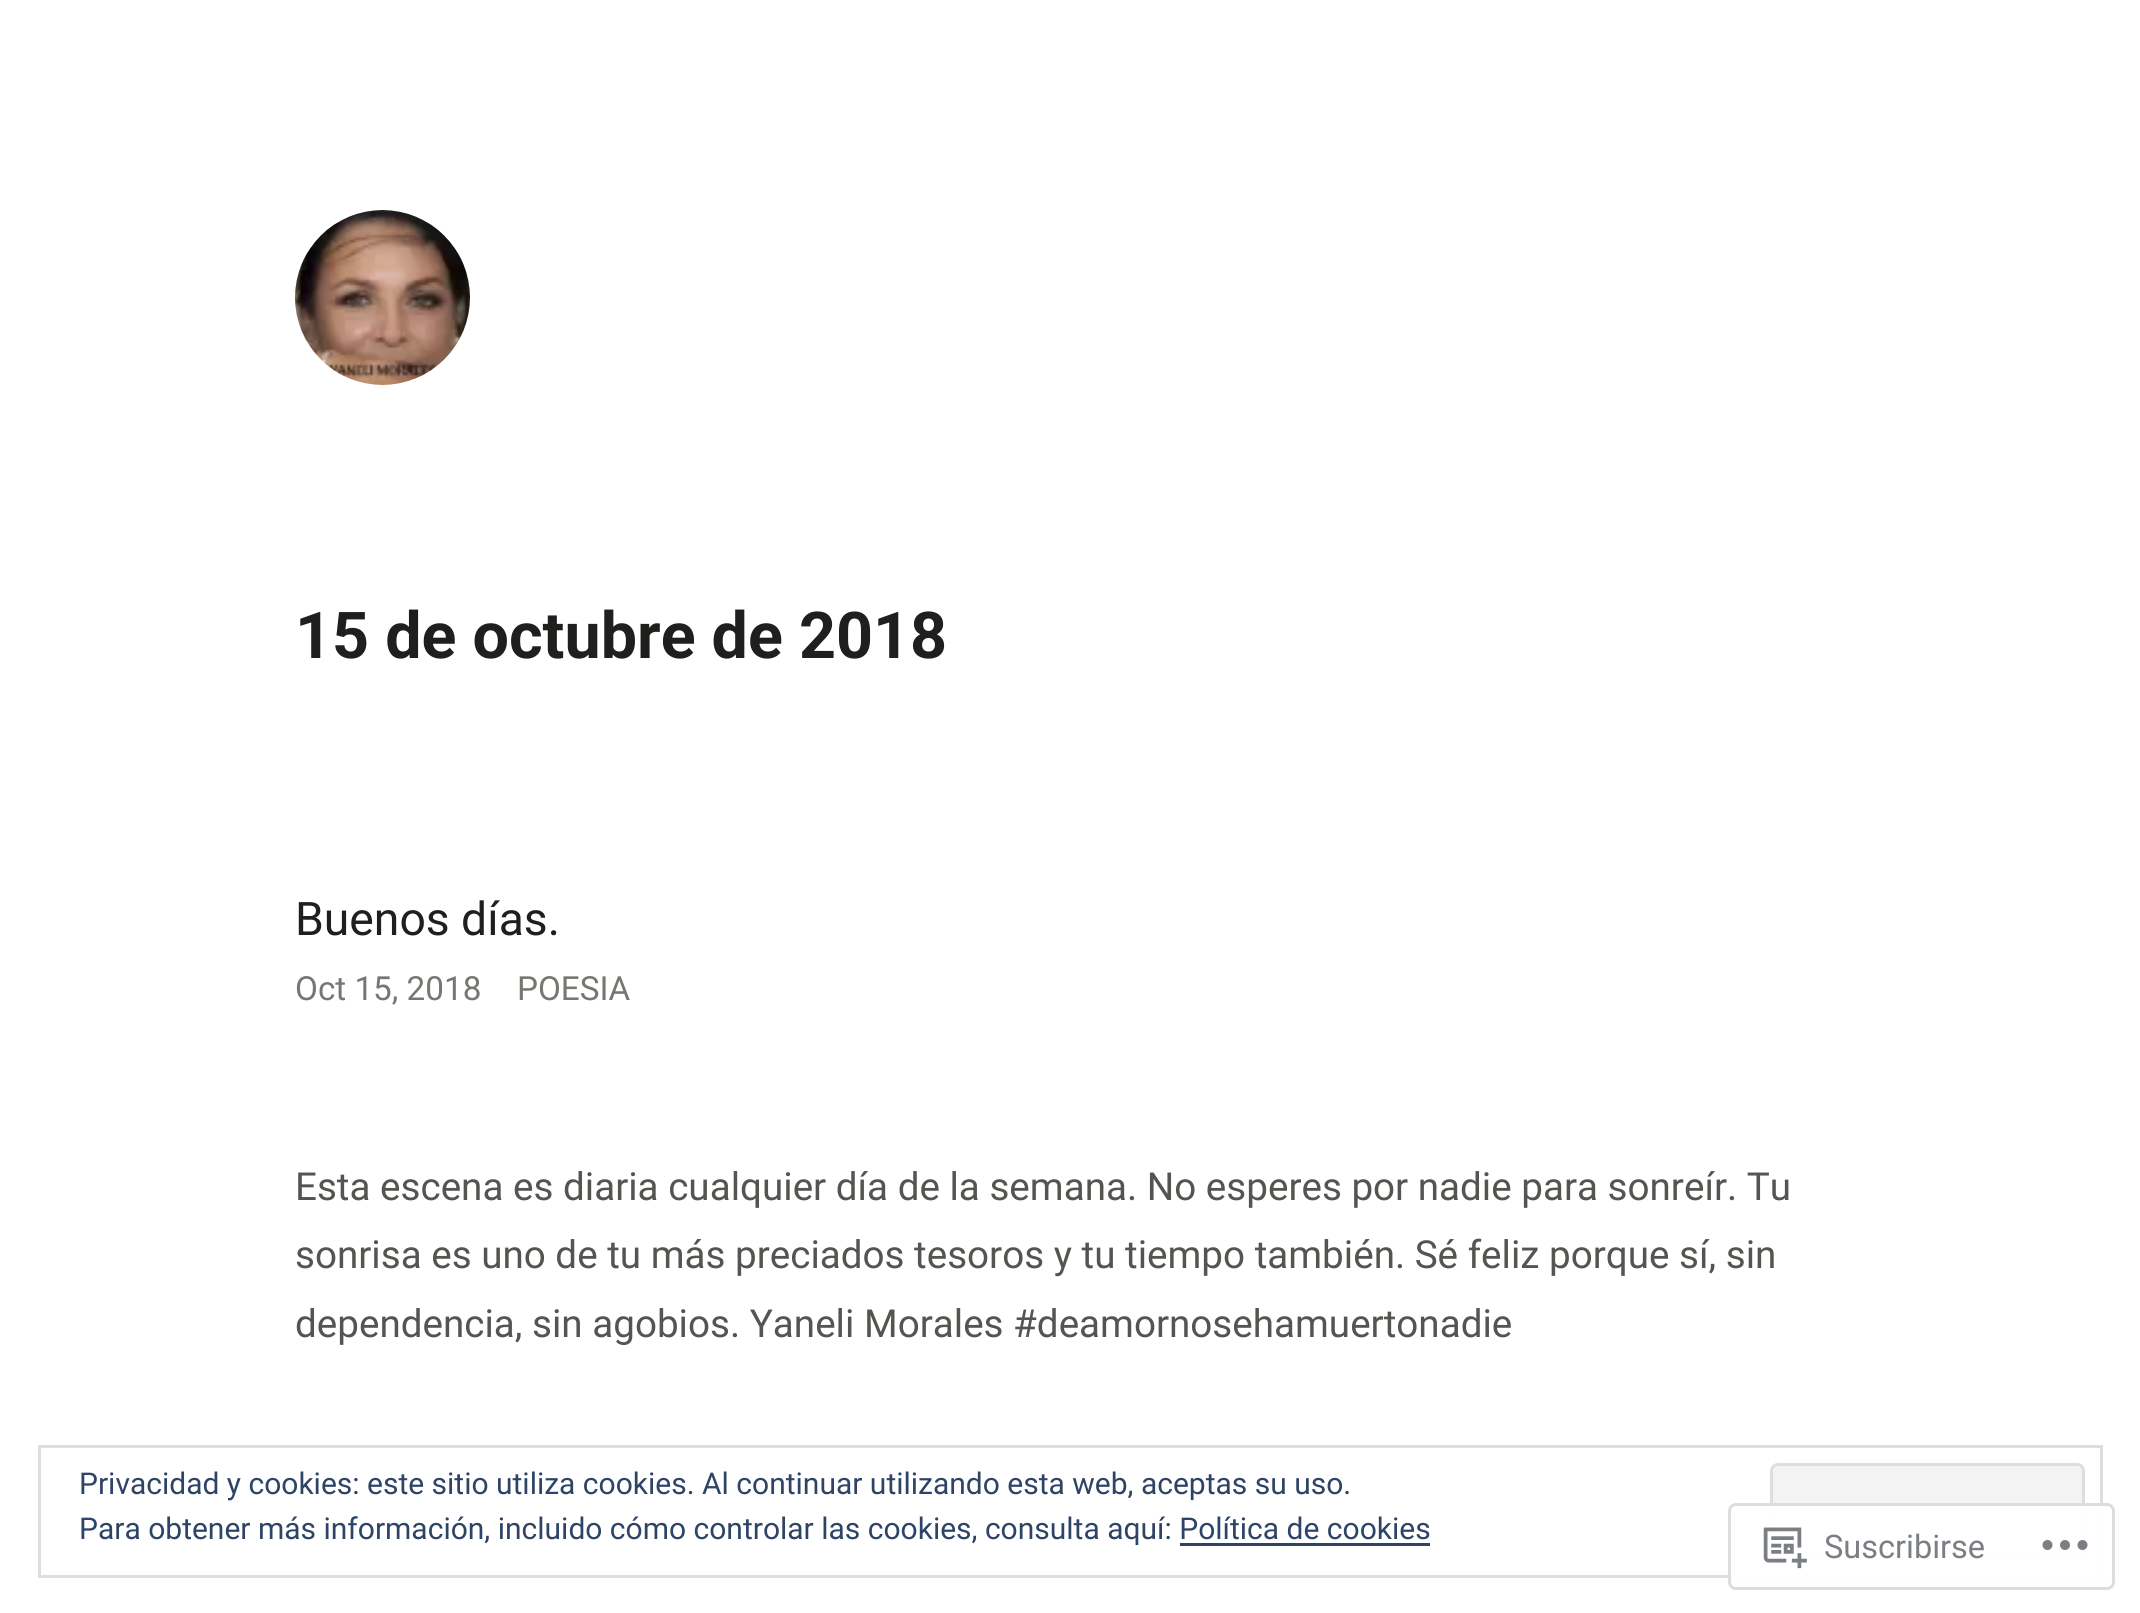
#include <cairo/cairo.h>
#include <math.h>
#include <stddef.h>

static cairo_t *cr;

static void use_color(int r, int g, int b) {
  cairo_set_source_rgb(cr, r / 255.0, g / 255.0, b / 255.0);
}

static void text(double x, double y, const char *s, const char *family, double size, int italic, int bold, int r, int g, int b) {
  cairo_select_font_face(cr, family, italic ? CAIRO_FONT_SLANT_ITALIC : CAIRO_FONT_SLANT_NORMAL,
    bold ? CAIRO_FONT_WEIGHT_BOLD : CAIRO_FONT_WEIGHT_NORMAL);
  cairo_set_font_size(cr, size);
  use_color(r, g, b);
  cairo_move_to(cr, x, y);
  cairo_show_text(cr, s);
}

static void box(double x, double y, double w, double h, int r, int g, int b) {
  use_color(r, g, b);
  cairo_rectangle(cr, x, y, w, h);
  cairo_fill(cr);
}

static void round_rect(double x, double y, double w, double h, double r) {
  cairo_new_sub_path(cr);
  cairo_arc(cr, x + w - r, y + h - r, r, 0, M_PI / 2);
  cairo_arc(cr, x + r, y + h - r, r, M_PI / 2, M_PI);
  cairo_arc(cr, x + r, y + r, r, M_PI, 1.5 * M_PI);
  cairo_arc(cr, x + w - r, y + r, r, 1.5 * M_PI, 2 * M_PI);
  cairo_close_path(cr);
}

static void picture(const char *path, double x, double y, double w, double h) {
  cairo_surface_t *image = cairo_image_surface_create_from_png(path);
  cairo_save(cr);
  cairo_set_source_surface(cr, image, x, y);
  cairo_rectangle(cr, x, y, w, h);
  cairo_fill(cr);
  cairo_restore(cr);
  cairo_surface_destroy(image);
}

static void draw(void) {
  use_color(255, 255, 255);
  cairo_paint(cr);
  picture("img_01.png", 295, 210, 175, 175);
  cairo_rectangle(cr, 39.5, 1446.5, 2062, 130);
  use_color(222, 222, 222);
  cairo_set_line_width(cr, 3);
  cairo_stroke(cr);
  use_color(243, 243, 243);
  round_rect(1771.5, 1464.5, 312, 94, 6.5);
  cairo_fill_preserve(cr);
  use_color(222, 222, 222);
  cairo_stroke(cr);
  box(1180, 1543, 250, 3, 46, 68, 103);
  cairo_set_source_rgba(cr, 1, 1, 1, 0.98);
  round_rect(1728, 1503, 387, 87, 8);
  cairo_fill(cr);
  round_rect(1729.5, 1504.5, 384, 84, 6.5);
  cairo_set_source_rgba(cr, 0.863, 0.863, 0.871, 0.98);
  cairo_stroke(cr);
  picture("img_02.png", 1763, 1527, 44, 42);
  picture("img_03.png", 2042, 1540, 46, 10);
  text(295, 658, "15 de octubre de 2018", "Roboto", 64.6, 0, 1, 31, 31, 29);
  text(295, 935, "Buenos días.", "Roboto", 46.25, 0, 0, 31, 31, 29);
  text(295, 1000, "Oct 15, 2018", "Roboto", 33.25, 0, 0, 120, 118, 112);
  text(517, 1000, "POESIA", "Roboto", 33.25, 0, 0, 120, 118, 112);
  text(295, 1200, "Esta escena es diaria cualquier día de la semana. No esperes por nadie para sonreír. Tu", "Roboto", 38.6, 0, 0, 85, 84, 81);
  text(295, 1268, "sonrisa es uno de tu más preciados tesoros y tu tiempo también. Sé feliz porque sí, sin", "Roboto", 38.6, 0, 0, 85, 84, 81);
  text(295, 1337, "dependencia, sin agobios. Yaneli Morales #deamornosehamuertonadie", "Roboto", 38.6, 0, 0, 85, 84, 81);
  text(79, 1494, "Privacidad y cookies: este sitio utiliza cookies. Al continuar utilizando esta web, aceptas su uso.", "Roboto", 30, 0, 0, 46, 68, 103);
  text(79, 1539, "Para obtener más información, incluido cómo controlar las cookies, consulta aquí: Política de cookies", "Roboto", 30, 0, 0, 46, 68, 103);
  text(1824, 1558, "Suscribirse", "Roboto", 32.5, 0, 0, 123, 127, 132);
}

int main(void) {
  cairo_surface_t *surface = cairo_image_surface_create(CAIRO_FORMAT_RGB24, 2140, 1613);
  cr = cairo_create(surface);
  cairo_font_options_t *options = cairo_font_options_create();
  cairo_font_options_set_hint_metrics(options, CAIRO_HINT_METRICS_OFF);
  cairo_font_options_set_hint_style(options, CAIRO_HINT_STYLE_NONE);
  cairo_set_font_options(cr, options);
  cairo_set_miter_limit(cr, 4);
  draw();
  cairo_surface_write_to_png(surface, "out.png");
  cairo_font_options_destroy(options);
  cairo_destroy(cr);
  cairo_surface_destroy(surface);
  return 0;
}
